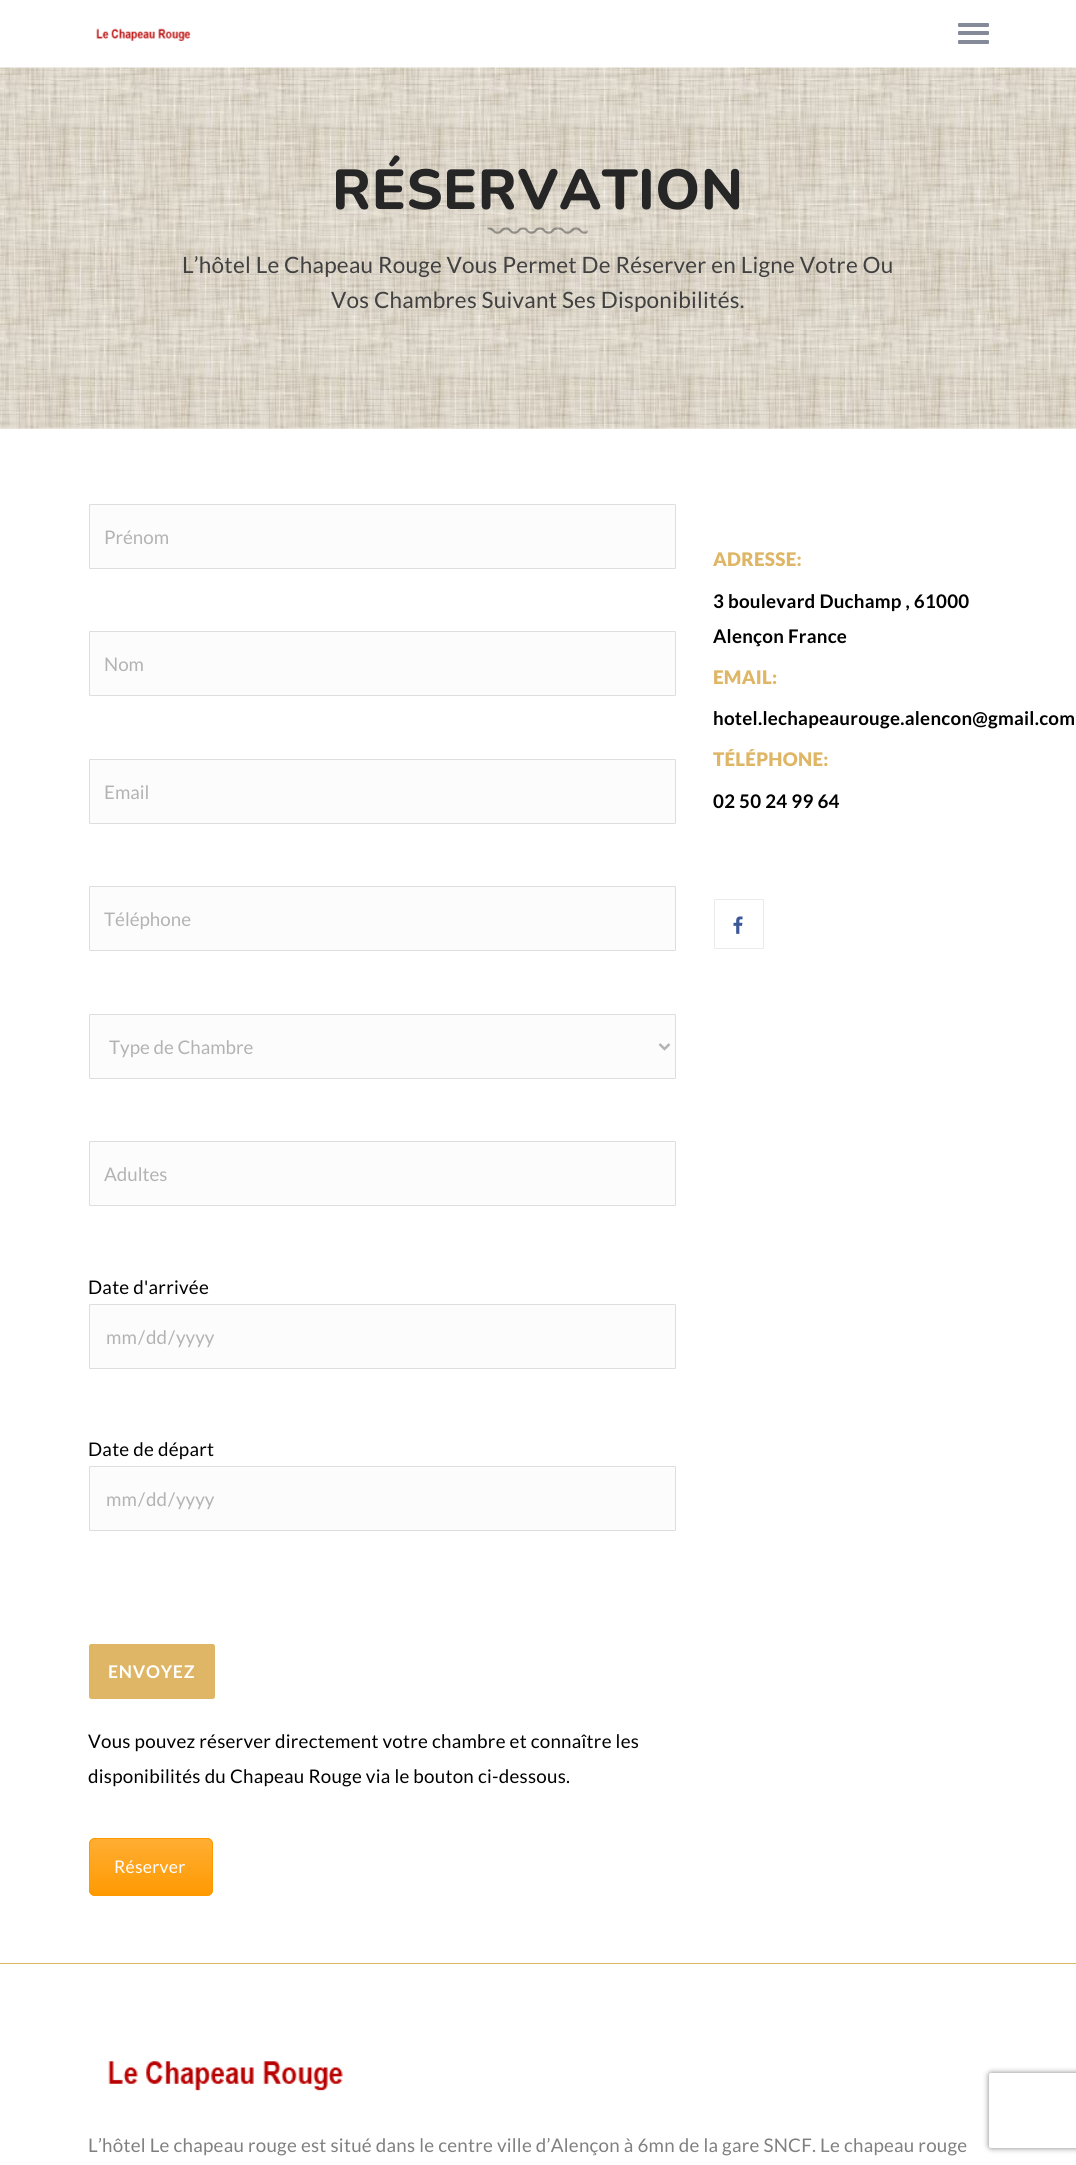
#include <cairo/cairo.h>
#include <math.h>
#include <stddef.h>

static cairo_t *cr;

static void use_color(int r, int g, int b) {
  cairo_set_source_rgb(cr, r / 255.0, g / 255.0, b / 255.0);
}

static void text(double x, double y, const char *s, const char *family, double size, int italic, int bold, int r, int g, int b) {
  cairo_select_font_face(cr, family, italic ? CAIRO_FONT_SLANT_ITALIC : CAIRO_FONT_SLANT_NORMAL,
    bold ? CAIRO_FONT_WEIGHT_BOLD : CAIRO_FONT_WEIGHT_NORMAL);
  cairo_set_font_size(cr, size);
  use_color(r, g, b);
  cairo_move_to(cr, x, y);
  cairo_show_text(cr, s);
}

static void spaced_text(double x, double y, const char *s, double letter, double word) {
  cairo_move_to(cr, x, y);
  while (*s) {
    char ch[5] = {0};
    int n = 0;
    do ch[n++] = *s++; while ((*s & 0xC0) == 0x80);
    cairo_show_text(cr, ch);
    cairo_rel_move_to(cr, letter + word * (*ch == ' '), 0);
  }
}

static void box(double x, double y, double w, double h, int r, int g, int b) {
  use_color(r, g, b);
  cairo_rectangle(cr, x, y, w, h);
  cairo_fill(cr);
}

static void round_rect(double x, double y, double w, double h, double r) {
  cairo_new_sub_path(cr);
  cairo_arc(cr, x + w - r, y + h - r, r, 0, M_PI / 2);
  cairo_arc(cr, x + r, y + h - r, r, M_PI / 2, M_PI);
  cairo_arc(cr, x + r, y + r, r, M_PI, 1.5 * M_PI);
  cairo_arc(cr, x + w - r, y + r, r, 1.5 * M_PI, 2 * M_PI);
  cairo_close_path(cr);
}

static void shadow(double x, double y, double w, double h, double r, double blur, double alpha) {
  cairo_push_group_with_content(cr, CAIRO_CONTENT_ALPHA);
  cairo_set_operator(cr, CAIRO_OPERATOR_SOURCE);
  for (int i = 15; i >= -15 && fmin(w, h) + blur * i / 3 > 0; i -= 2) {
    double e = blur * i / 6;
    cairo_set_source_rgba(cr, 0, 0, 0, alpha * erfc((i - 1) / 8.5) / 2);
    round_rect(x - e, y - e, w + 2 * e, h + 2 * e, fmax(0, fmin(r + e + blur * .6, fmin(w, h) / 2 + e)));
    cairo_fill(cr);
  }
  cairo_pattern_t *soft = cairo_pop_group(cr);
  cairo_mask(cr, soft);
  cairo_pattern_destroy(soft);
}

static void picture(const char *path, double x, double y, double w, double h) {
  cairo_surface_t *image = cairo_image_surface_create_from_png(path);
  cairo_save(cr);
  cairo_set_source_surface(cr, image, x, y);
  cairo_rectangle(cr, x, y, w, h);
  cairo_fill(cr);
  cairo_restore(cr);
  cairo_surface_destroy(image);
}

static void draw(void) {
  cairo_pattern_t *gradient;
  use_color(255, 255, 255);
  cairo_paint(cr);
  picture("img_01.png", 96, 28, 95, 13);
  use_color(133, 138, 153);
  round_rect(958, 23, 31, 4, 1);
  cairo_fill(cr);
  round_rect(958, 31, 31, 4, 1);
  cairo_fill(cr);
  round_rect(958, 40, 31, 4, 1);
  cairo_fill(cr);
  picture("img_02.png", 0, 67, 1076, 362);
  picture("img_03.png", 487, 227, 101, 7);
  use_color(252, 252, 252);
  round_rect(89.5, 504.5, 586, 64, 0.5);
  cairo_fill_preserve(cr);
  use_color(222, 222, 222);
  cairo_set_line_width(cr, 1);
  cairo_stroke(cr);
  use_color(252, 252, 252);
  round_rect(89.5, 631.5, 586, 64, 0.5);
  cairo_fill_preserve(cr);
  use_color(222, 222, 222);
  cairo_stroke(cr);
  use_color(252, 252, 252);
  round_rect(89.5, 759.5, 586, 64, 0.5);
  cairo_fill_preserve(cr);
  use_color(222, 222, 222);
  cairo_stroke(cr);
  use_color(252, 252, 252);
  round_rect(89.5, 886.5, 586, 64, 0.5);
  cairo_fill_preserve(cr);
  use_color(222, 222, 222);
  cairo_stroke(cr);
  use_color(252, 252, 252);
  round_rect(89.5, 1014.5, 586, 64, 0.5);
  cairo_fill_preserve(cr);
  use_color(222, 222, 222);
  cairo_stroke(cr);
  cairo_new_path(cr);
  cairo_move_to(cr, 659.5, 1044);
  cairo_line_to(cr, 664.5, 1049);
  cairo_line_to(cr, 669.5, 1044);
  use_color(179, 179, 179);
  cairo_set_line_width(cr, 2.5);
  cairo_stroke(cr);
  use_color(252, 252, 252);
  round_rect(89.5, 1141.5, 586, 64, 0.5);
  cairo_fill_preserve(cr);
  use_color(222, 222, 222);
  cairo_set_line_width(cr, 1);
  cairo_stroke(cr);
  use_color(252, 252, 252);
  round_rect(89.5, 1304.5, 586, 64, 0.5);
  cairo_fill_preserve(cr);
  use_color(222, 222, 222);
  cairo_stroke(cr);
  use_color(252, 252, 252);
  round_rect(89.5, 1466.5, 586, 64, 0.5);
  cairo_fill_preserve(cr);
  use_color(222, 222, 222);
  cairo_stroke(cr);
  use_color(222, 182, 102);
  round_rect(89.5, 1644.5, 125, 54, 2);
  cairo_fill_preserve(cr);
  cairo_stroke(cr);
  use_color(255, 153, 0);
  round_rect(89, 1838, 124, 58, 6);
  cairo_fill(cr);
  cairo_save(cr);
  round_rect(89, 1838, 124, 58, 6);
  cairo_clip(cr);
  gradient = cairo_pattern_create_linear(151, 1839, 151, 1895);
  cairo_pattern_add_color_stop_rgba(gradient, 0, 1, 1, 1, 0.2);
  cairo_pattern_add_color_stop_rgba(gradient, 1, 1, 1, 1, 0.01);
  cairo_set_source(cr, gradient);
  cairo_pattern_destroy(gradient);
  cairo_rectangle(cr, 89, 1839, 124, 53);
  cairo_fill(cr);
  cairo_restore(cr);
  round_rect(89.5, 1838.5, 123, 57, 5.5);
  cairo_stroke(cr);
  round_rect(714.5, 899.5, 49, 49, 0.5);
  use_color(234, 234, 234);
  cairo_stroke(cr);
  picture("img_04.png", 733, 916, 10, 18);
  box(0, 1963, 1076, 1, 222, 182, 102);
  picture("img_05.png", 108, 2061, 235, 30);
  cairo_save(cr);
  cairo_set_fill_rule(cr, CAIRO_FILL_RULE_EVEN_ODD);
  cairo_new_path(cr);
  cairo_move_to(cr, 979, 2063);
  cairo_line_to(cr, 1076, 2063);
  cairo_line_to(cr, 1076, 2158);
  cairo_line_to(cr, 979, 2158);
  cairo_close_path(cr);
  cairo_move_to(cr, 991.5, 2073);
  cairo_line_to(cr, 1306.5, 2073);
  cairo_curve_to(cr, 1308, 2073, 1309, 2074, 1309, 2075.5);
  cairo_line_to(cr, 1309, 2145.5);
  cairo_curve_to(cr, 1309, 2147, 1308, 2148, 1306.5, 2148);
  cairo_line_to(cr, 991.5, 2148);
  cairo_curve_to(cr, 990, 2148, 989, 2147, 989, 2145.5);
  cairo_line_to(cr, 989, 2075.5);
  cairo_curve_to(cr, 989, 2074, 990, 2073, 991.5, 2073);
  cairo_close_path(cr);
  cairo_clip(cr);
  use_color(128, 128, 128);
  shadow(989, 2073, 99, 75, 2.5, 3, 1);
  cairo_restore(cr);
  cairo_select_font_face(cr, "Nunito ExtraBold", CAIRO_FONT_SLANT_NORMAL, CAIRO_FONT_WEIGHT_NORMAL);
  cairo_set_font_size(cr, 56.25);
  use_color(38, 38, 38);
  spaced_text(332, 209, "RÉSERVATION", 0.6, 0);
  cairo_select_font_face(cr, "Lato", CAIRO_FONT_SLANT_NORMAL, CAIRO_FONT_WEIGHT_NORMAL);
  cairo_set_font_size(cr, 22.5);
  use_color(65, 65, 65);
  spaced_text(182, 273, "L’hôtel Le Chapeau Rouge Vous Permet De Réserver en Ligne Votre Ou", 0.25, 0);
  spaced_text(331, 308, "Vos Chambres Suivant Ses Disponibilités.", 0.25, 0);
  text(104, 544, "Prénom", "Lato", 18.75, 0, 0, 179, 179, 179);
  text(104, 671, "Nom", "Lato", 18.75, 0, 0, 179, 179, 179);
  text(104, 799, "Email", "Lato", 18.75, 0, 0, 179, 179, 179);
  text(104, 926, "Téléphone", "Lato", 18.75, 0, 0, 179, 179, 179);
  text(109, 1054, "Type de Chambre", "Lato", 18.75, 0, 0, 179, 179, 179);
  text(104, 1181, "Adultes", "Lato", 18.75, 0, 0, 179, 179, 179);
  use_color(0, 0, 0);
  spaced_text(88, 1294, "Date d'arrivée", 0.25, 0);
  text(106, 1344, "mm", "Lato", 18.75, 0, 0, 179, 179, 179);
  text(138, 1344, "/", "Lato", 18.75, 0, 0, 179, 179, 179);
  text(146, 1344, "dd", "Lato", 18.75, 0, 0, 179, 179, 179);
  text(168, 1344, "/", "Lato", 18.75, 0, 0, 179, 179, 179);
  text(176, 1344, "yyyy", "Lato", 18.75, 0, 0, 179, 179, 179);
  use_color(0, 0, 0);
  spaced_text(88, 1456, "Date de départ", 0.25, 0);
  text(106, 1506, "mm", "Lato", 18.75, 0, 0, 179, 179, 179);
  text(138, 1506, "/", "Lato", 18.75, 0, 0, 179, 179, 179);
  text(146, 1506, "dd", "Lato", 18.75, 0, 0, 179, 179, 179);
  text(168, 1506, "/", "Lato", 18.75, 0, 0, 179, 179, 179);
  text(176, 1506, "yyyy", "Lato", 18.75, 0, 0, 179, 179, 179);
  cairo_select_font_face(cr, "Lato", CAIRO_FONT_SLANT_NORMAL, CAIRO_FONT_WEIGHT_BOLD);
  cairo_set_font_size(cr, 17.5);
  use_color(255, 255, 255);
  spaced_text(108, 1678, "ENVOYEZ", 0.75, 0);
  cairo_select_font_face(cr, "Lato", CAIRO_FONT_SLANT_NORMAL, CAIRO_FONT_WEIGHT_NORMAL);
  cairo_set_font_size(cr, 18.75);
  use_color(0, 0, 0);
  spaced_text(88, 1748, "Vous pouvez réserver directement votre chambre et connaître les", 0.25, 0);
  spaced_text(88, 1783, "disponibilités du Chapeau Rouge via le bouton ci-dessous.", 0.25, 0);
  cairo_set_font_size(cr, 17.5);
  use_color(255, 255, 255);
  spaced_text(114, 1873, "Réserver", 0.25, 0);
  cairo_select_font_face(cr, "Lato Black", CAIRO_FONT_SLANT_NORMAL, CAIRO_FONT_WEIGHT_NORMAL);
  cairo_set_font_size(cr, 18.75);
  use_color(222, 182, 102);
  spaced_text(713, 566, "ADRESSE:", 0.25, 0);
  cairo_select_font_face(cr, "Lato", CAIRO_FONT_SLANT_NORMAL, CAIRO_FONT_WEIGHT_BOLD);
  use_color(0, 0, 0);
  spaced_text(713, 608, "3 boulevard Duchamp , 61000", 0.25, 0);
  spaced_text(713, 643, "Alençon France", 0.25, 0);
  cairo_select_font_face(cr, "Lato Black", CAIRO_FONT_SLANT_NORMAL, CAIRO_FONT_WEIGHT_NORMAL);
  use_color(222, 182, 102);
  spaced_text(713, 684, "EMAIL:", 0.25, 0);
  cairo_select_font_face(cr, "Lato", CAIRO_FONT_SLANT_NORMAL, CAIRO_FONT_WEIGHT_BOLD);
  use_color(0, 0, 0);
  spaced_text(713, 725, "hotel.lechapeaurouge.alencon@gmail.com", 0.25, 0);
  cairo_select_font_face(cr, "Lato Black", CAIRO_FONT_SLANT_NORMAL, CAIRO_FONT_WEIGHT_NORMAL);
  use_color(222, 182, 102);
  spaced_text(713, 766, "TÉLÉPHONE:", 0.25, 0);
  cairo_select_font_face(cr, "Lato", CAIRO_FONT_SLANT_NORMAL, CAIRO_FONT_WEIGHT_BOLD);
  use_color(0, 0, 0);
  spaced_text(713, 808, "02 50 24 99 64", 0.25, 0);
  cairo_select_font_face(cr, "Lato", CAIRO_FONT_SLANT_NORMAL, CAIRO_FONT_WEIGHT_NORMAL);
  use_color(128, 128, 128);
  spaced_text(88, 2152, "L’hôtel Le chapeau rouge est situé dans le centre ville d’Alençon à 6mn de la gare SNCF. Le chapeau rouge", 0.25, 0);
}

int main(void) {
  cairo_surface_t *surface = cairo_image_surface_create(CAIRO_FORMAT_RGB24, 1076, 2165);
  cr = cairo_create(surface);
  cairo_font_options_t *options = cairo_font_options_create();
  cairo_font_options_set_hint_metrics(options, CAIRO_HINT_METRICS_OFF);
  cairo_font_options_set_hint_style(options, CAIRO_HINT_STYLE_NONE);
  cairo_set_font_options(cr, options);
  cairo_set_miter_limit(cr, 4);
  draw();
  cairo_surface_write_to_png(surface, "out.png");
  cairo_font_options_destroy(options);
  cairo_destroy(cr);
  cairo_surface_destroy(surface);
  return 0;
}
